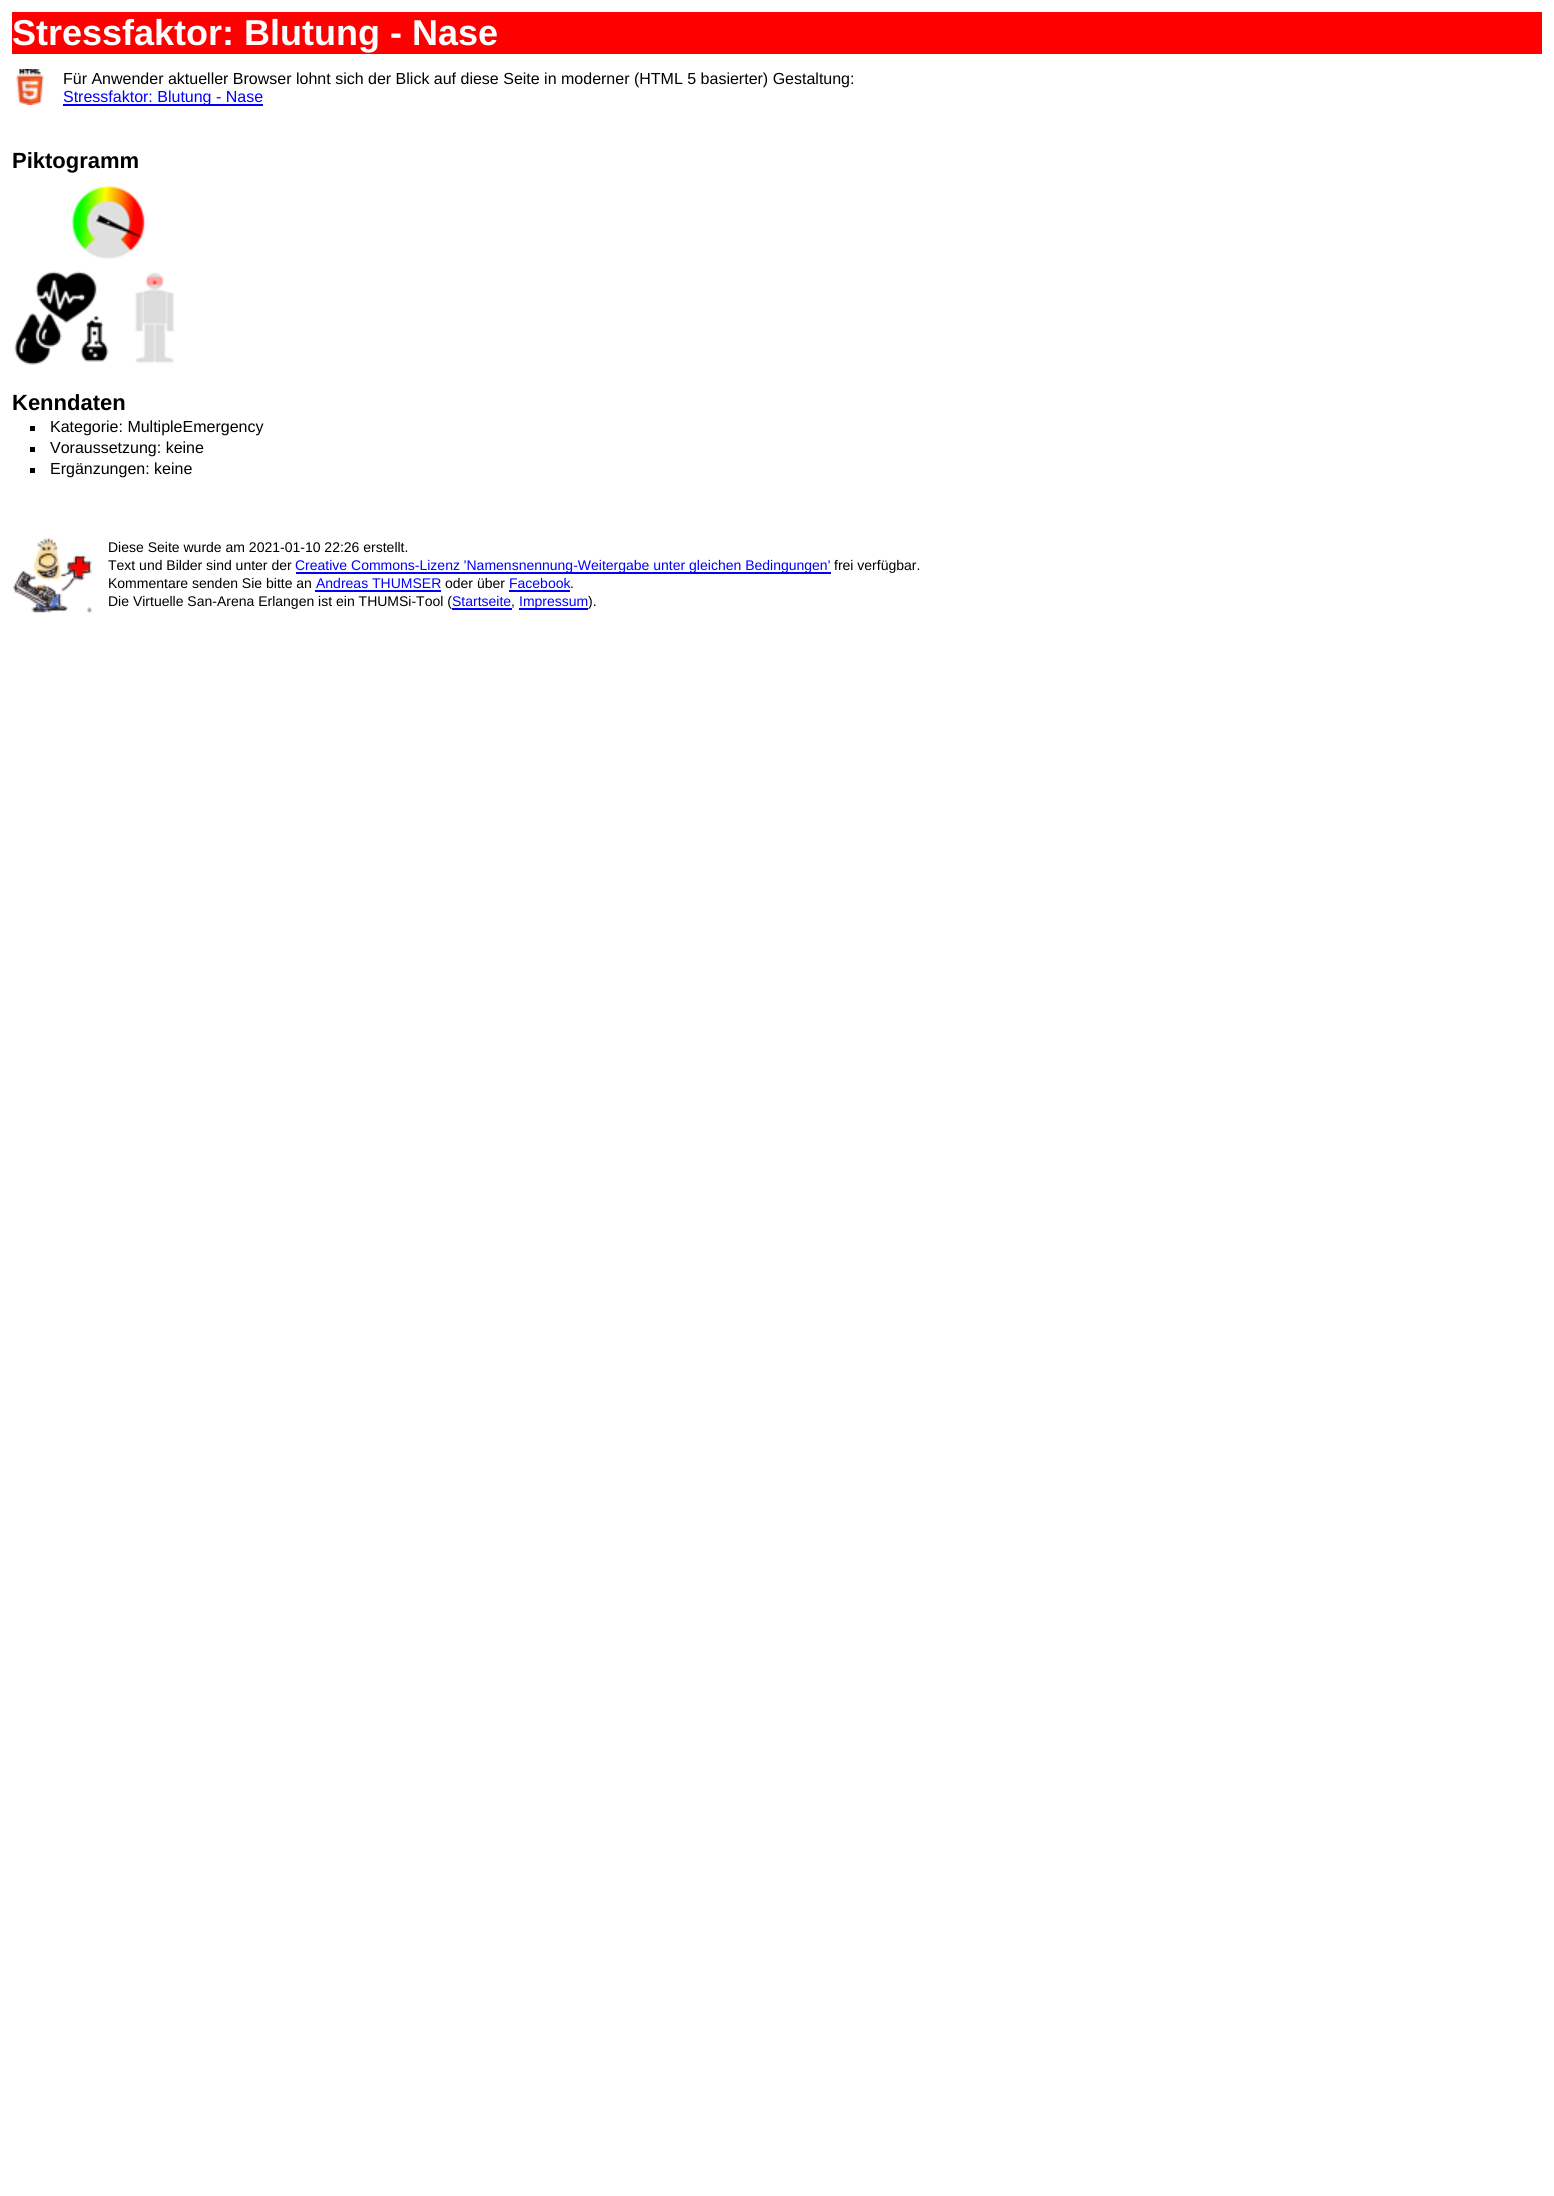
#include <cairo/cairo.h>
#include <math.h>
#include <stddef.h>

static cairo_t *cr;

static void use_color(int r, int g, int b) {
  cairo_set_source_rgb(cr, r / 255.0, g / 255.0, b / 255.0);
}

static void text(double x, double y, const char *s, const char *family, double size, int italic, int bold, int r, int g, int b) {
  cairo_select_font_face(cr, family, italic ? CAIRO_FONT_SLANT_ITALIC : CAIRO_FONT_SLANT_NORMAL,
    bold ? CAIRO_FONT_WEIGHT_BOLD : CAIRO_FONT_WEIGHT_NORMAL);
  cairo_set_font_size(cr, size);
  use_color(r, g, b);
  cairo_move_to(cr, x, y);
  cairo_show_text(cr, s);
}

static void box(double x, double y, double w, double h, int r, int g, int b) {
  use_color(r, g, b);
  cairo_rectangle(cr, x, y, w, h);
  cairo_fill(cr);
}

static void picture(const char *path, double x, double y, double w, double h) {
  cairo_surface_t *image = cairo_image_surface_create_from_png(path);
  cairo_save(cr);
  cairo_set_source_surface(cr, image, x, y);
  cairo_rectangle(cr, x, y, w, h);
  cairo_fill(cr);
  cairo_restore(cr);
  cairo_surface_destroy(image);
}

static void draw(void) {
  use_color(255, 255, 255);
  cairo_paint(cr);
  box(12, 12, 1530, 42, 255, 0, 0);
  picture("img_01.png", 16, 69, 28, 36);
  box(63, 104, 200, 2, 0, 0, 255);
  picture("img_02.png", 14, 185, 160, 180);
  box(30, 426, 5, 5, 0, 0, 0);
  box(30, 447, 5, 5, 0, 0, 0);
  box(30, 468, 5, 5, 0, 0, 0);
  picture("img_03.png", 13, 538, 79, 76);
  box(296, 572, 535, 2, 0, 0, 255);
  box(315, 590, 126, 2, 0, 0, 255);
  box(509, 590, 61, 2, 0, 0, 255);
  box(452, 608, 60, 2, 0, 0, 255);
  box(519, 608, 69, 2, 0, 0, 255);
  text(12, 45, "Stressfaktor: Blutung - Nase", "Liberation Sans", 36, 0, 1, 255, 255, 255);
  text(63, 84, "Für Anwender aktueller Browser lohnt sich der Blick auf diese Seite in moderner (HTML 5 basierter) Gestaltung:", "Liberation Sans", 16, 0, 0, 0, 0, 0);
  text(63, 102, "Stressfaktor: Blutung - Nase", "Liberation Sans", 16, 0, 0, 0, 0, 255);
  text(12, 168, "Piktogramm", "Liberation Sans", 22, 0, 1, 0, 0, 0);
  text(12, 410, "Kenndaten", "Liberation Sans", 22, 0, 1, 0, 0, 0);
  text(50, 432, "Kategorie: MultipleEmergency", "Liberation Sans", 16, 0, 0, 0, 0, 0);
  text(50, 453, "Voraussetzung: keine", "Liberation Sans", 16, 0, 0, 0, 0, 0);
  text(50, 474, "Ergänzungen: keine", "Liberation Sans", 16, 0, 0, 0, 0, 0);
  text(108, 552, "Diese Seite wurde am 2021-01-10 22:26 erstellt.", "Liberation Sans", 14, 0, 0, 0, 0, 0);
  text(108, 570, "Text und Bilder sind unter der", "Liberation Sans", 14, 0, 0, 0, 0, 0);
  text(295, 570, "Creative Commons-Lizenz 'Namensnennung-Weitergabe unter gleichen Bedingungen'", "Liberation Sans", 14, 0, 0, 0, 0, 255);
  text(834, 570, "frei verfügbar.", "Liberation Sans", 14, 0, 0, 0, 0, 0);
  text(108, 588, "Kommentare senden Sie bitte an", "Liberation Sans", 14, 0, 0, 0, 0, 0);
  text(316, 588, "Andreas THUMSER", "Liberation Sans", 14, 0, 0, 0, 0, 255);
  text(445, 588, "oder über", "Liberation Sans", 14, 0, 0, 0, 0, 0);
  text(509, 588, "Facebook", "Liberation Sans", 14, 0, 0, 0, 0, 255);
  text(570, 588, ".", "Liberation Sans", 14, 0, 0, 0, 0, 0);
  text(108, 606, "Die Virtuelle San-Arena Erlangen ist ein THUMSi-Tool (", "Liberation Sans", 14, 0, 0, 0, 0, 0);
  text(452, 606, "Startseite", "Liberation Sans", 14, 0, 0, 0, 0, 255);
  text(511, 606, ",", "Liberation Sans", 14, 0, 0, 0, 0, 0);
  text(519, 606, "Impressum", "Liberation Sans", 14, 0, 0, 0, 0, 255);
  text(588, 606, ").", "Liberation Sans", 14, 0, 0, 0, 0, 0);
}

int main(void) {
  cairo_surface_t *surface = cairo_image_surface_create(CAIRO_FORMAT_RGB24, 1554, 2196);
  cr = cairo_create(surface);
  cairo_font_options_t *options = cairo_font_options_create();
  cairo_font_options_set_hint_metrics(options, CAIRO_HINT_METRICS_OFF);
  cairo_font_options_set_hint_style(options, CAIRO_HINT_STYLE_NONE);
  cairo_set_font_options(cr, options);
  cairo_set_miter_limit(cr, 4);
  draw();
  cairo_surface_write_to_png(surface, "out.png");
  cairo_font_options_destroy(options);
  cairo_destroy(cr);
  cairo_surface_destroy(surface);
  return 0;
}
